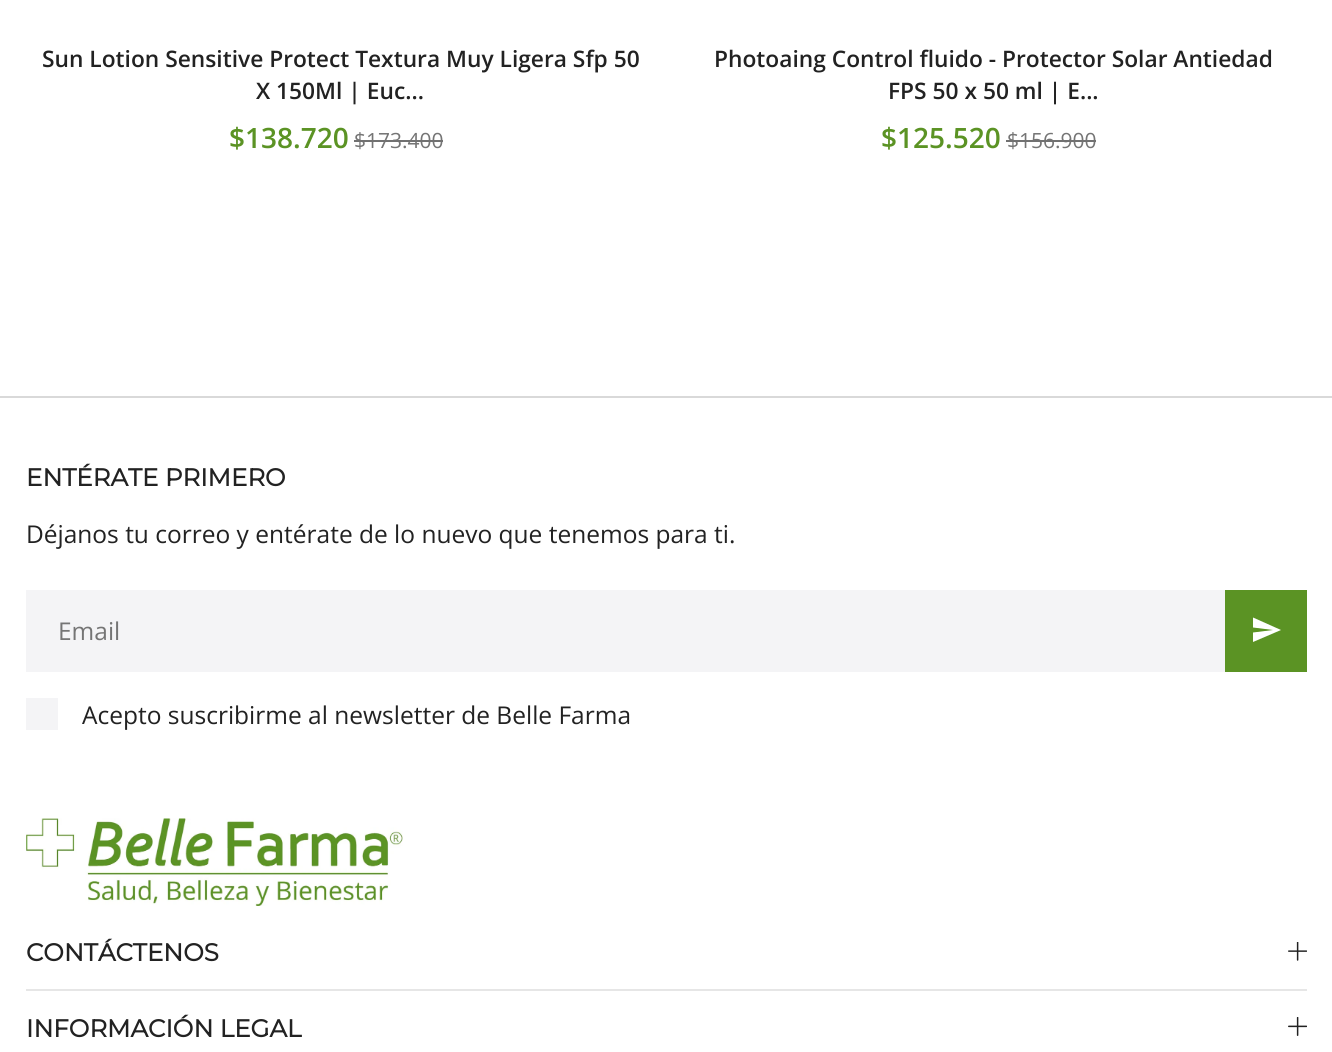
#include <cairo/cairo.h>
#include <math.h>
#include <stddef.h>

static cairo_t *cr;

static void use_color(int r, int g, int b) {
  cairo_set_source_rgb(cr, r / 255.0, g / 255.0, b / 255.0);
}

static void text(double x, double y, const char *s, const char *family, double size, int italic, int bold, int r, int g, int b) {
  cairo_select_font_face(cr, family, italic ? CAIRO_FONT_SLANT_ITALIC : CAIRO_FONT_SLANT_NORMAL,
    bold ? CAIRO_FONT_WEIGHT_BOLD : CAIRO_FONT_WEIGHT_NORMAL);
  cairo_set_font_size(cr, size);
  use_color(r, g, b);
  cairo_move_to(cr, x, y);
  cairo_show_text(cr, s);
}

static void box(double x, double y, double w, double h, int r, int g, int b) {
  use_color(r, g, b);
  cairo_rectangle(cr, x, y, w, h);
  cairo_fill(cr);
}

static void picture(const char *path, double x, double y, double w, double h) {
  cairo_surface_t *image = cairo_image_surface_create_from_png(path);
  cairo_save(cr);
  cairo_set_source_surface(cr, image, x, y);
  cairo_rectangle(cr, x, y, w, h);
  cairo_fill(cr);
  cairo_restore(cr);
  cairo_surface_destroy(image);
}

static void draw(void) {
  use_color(255, 255, 255);
  cairo_paint(cr);
  box(0, 396, 1332, 2, 217, 217, 217);
  box(26, 590, 1199, 82, 244, 244, 246);
  box(1225, 590, 82, 82, 91, 147, 36);
  use_color(255, 255, 255);
  cairo_new_path(cr);
  cairo_move_to(cr, 1253, 642);
  cairo_line_to(cr, 1281, 630);
  cairo_line_to(cr, 1253, 617.5);
  cairo_line_to(cr, 1253, 627.5);
  cairo_line_to(cr, 1273, 630);
  cairo_line_to(cr, 1253, 632.5);
  cairo_close_path(cr);
  cairo_fill(cr);
  box(26, 698, 32, 32, 244, 244, 246);
  picture("img_01.png", 26, 818, 377, 88);
  box(26, 989, 1281, 2, 230, 230, 230);
  picture("img_02.png", 1288, 942, 19, 19);
  picture("img_03.png", 1288, 1017, 19, 19);
  text(42, 67, "Sun Lotion Sensitive Protect Textura Muy Ligera Sfp 50", "Open Sans SemiBold", 22.75, 0, 0, 34, 34, 34);
  text(256, 99, "X 150Ml | Euc...", "Open Sans SemiBold", 22.75, 0, 0, 34, 34, 34);
  text(229, 148, "$138.720", "Open Sans SemiBold", 28, 0, 0, 91, 147, 36);
  text(354, 148, "$173.400", "Open Sans", 21, 0, 0, 117, 117, 117);
  box(354, 140, 89, 2, 113, 113, 113);
  text(714, 67, "Photoaing Control fluido - Protector Solar Antiedad", "Open Sans SemiBold", 22.75, 0, 0, 34, 34, 34);
  text(888, 99, "FPS 50 x 50 ml | E...", "Open Sans SemiBold", 22.75, 0, 0, 34, 34, 34);
  text(881, 148, "$125.520", "Open Sans SemiBold", 28, 0, 0, 91, 147, 36);
  text(1007, 148, "$156.900", "Open Sans", 21, 0, 0, 117, 117, 117);
  box(1006, 140, 90, 2, 113, 113, 113);
  text(26, 486, "ENTÉRATE PRIMERO", "Montserrat", 24.5, 0, 1, 34, 34, 34);
  text(26, 543, "Déjanos tu correo y entérate de lo nuevo que tenemos para ti.", "Open Sans", 24.5, 0, 0, 34, 34, 34);
  text(58, 640, "Email", "Open Sans", 24.5, 0, 0, 117, 117, 117);
  text(82, 724, "Acepto suscribirme al newsletter de Belle Farma", "Open Sans", 24.5, 0, 0, 34, 34, 34);
  text(26, 961, "CONTÁCTENOS", "Montserrat", 24.5, 0, 1, 34, 34, 34);
  text(26, 1037, "INFORMACIÓN LEGAL", "Montserrat", 24.5, 0, 1, 34, 34, 34);
}

int main(void) {
  cairo_surface_t *surface = cairo_image_surface_create(CAIRO_FORMAT_RGB24, 1332, 1052);
  cr = cairo_create(surface);
  cairo_font_options_t *options = cairo_font_options_create();
  cairo_font_options_set_hint_metrics(options, CAIRO_HINT_METRICS_OFF);
  cairo_font_options_set_hint_style(options, CAIRO_HINT_STYLE_NONE);
  cairo_set_font_options(cr, options);
  cairo_set_miter_limit(cr, 4);
  draw();
  cairo_surface_write_to_png(surface, "out.png");
  cairo_font_options_destroy(options);
  cairo_destroy(cr);
  cairo_surface_destroy(surface);
  return 0;
}
